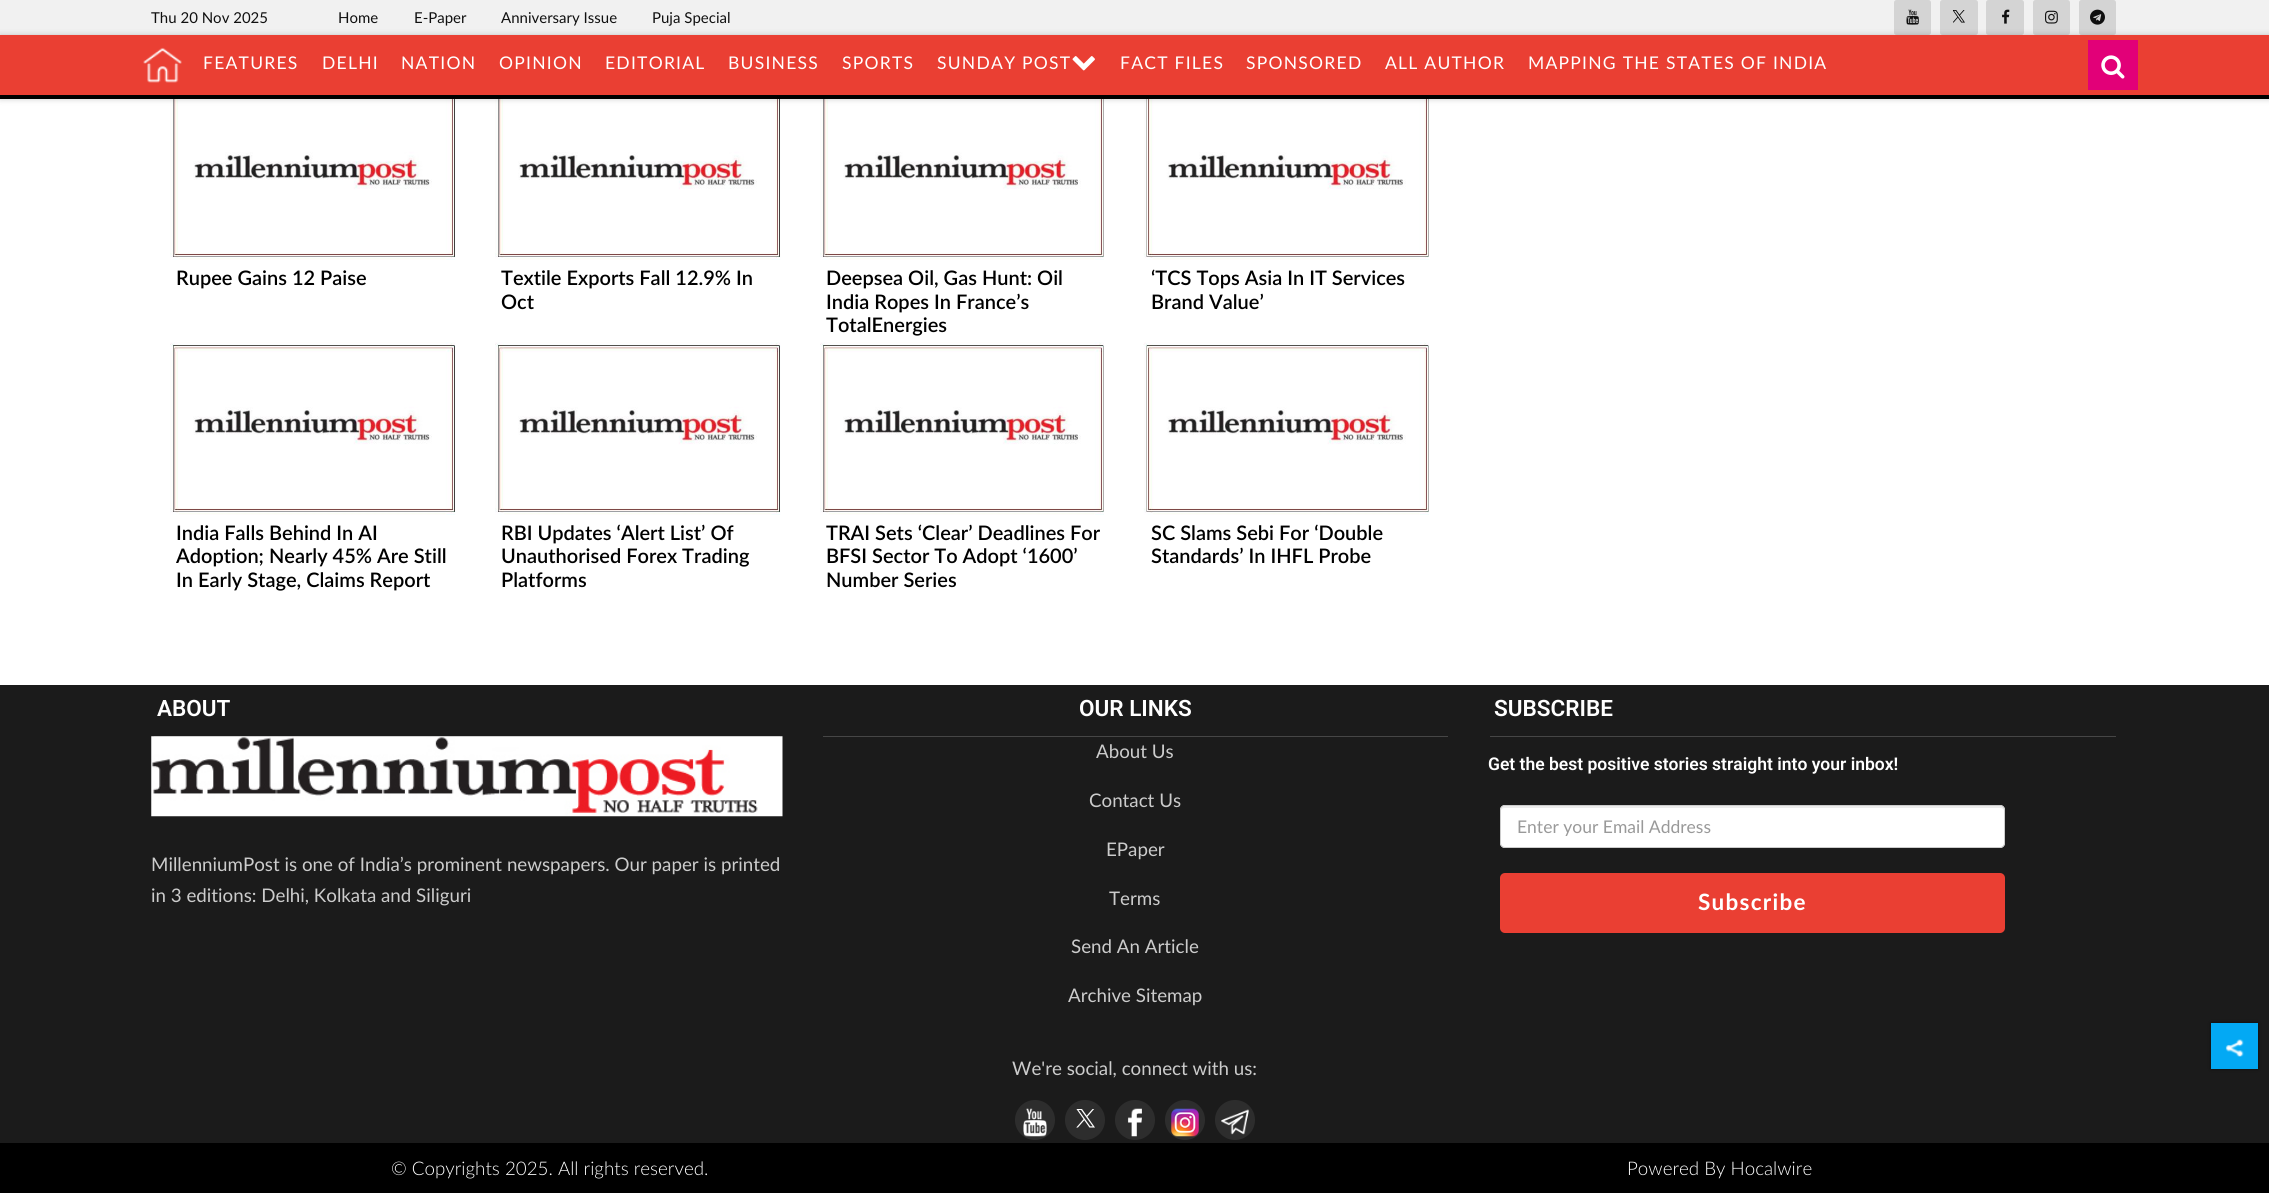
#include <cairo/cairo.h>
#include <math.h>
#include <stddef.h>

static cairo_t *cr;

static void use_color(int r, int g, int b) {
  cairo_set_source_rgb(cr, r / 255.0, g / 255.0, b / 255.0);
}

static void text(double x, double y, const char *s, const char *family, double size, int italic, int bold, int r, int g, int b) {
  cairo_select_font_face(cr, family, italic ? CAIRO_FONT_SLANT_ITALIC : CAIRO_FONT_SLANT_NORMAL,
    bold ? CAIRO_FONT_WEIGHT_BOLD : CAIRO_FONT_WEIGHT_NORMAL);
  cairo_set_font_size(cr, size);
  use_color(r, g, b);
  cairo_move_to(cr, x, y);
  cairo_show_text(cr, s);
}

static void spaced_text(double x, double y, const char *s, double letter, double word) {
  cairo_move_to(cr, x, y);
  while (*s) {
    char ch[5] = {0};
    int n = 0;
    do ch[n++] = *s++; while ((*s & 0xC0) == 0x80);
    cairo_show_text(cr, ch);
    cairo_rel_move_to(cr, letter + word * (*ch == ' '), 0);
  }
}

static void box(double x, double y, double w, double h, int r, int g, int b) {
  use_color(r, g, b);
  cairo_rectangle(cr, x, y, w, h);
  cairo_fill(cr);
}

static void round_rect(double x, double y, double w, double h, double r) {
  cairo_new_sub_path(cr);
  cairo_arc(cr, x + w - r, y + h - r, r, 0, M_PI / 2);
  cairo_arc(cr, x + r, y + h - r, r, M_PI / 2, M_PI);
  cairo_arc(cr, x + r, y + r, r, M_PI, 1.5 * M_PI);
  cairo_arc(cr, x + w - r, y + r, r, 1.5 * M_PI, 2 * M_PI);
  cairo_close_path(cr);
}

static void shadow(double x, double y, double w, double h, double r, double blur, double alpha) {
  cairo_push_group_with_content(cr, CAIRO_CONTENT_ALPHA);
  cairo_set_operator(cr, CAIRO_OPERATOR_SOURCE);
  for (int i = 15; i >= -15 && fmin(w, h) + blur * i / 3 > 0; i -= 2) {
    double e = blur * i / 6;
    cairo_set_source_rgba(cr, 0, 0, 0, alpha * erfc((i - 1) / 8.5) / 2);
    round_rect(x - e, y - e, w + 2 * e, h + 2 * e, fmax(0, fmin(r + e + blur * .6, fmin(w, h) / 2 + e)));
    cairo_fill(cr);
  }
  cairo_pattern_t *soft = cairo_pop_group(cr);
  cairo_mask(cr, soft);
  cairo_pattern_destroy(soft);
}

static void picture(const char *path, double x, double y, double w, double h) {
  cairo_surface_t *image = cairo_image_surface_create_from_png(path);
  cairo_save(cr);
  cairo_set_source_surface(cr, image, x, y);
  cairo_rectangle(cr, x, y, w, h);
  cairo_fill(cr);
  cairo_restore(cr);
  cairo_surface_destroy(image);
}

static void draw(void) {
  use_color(255, 255, 255);
  cairo_paint(cr);
  box(0, 0, 2269, 35, 241, 241, 241);
  use_color(212, 212, 212);
  round_rect(1894, 0, 37, 35, 2.5);
  cairo_fill(cr);
  picture("img_01.png", 1906, 9, 13, 16);
  round_rect(1940, 0, 38, 35, 2.5);
  cairo_fill(cr);
  picture("img_02.png", 1953, 10, 12, 13);
  round_rect(1986, 0, 38, 35, 2.5);
  cairo_fill(cr);
  picture("img_03.png", 2002, 9, 8, 15);
  round_rect(2033, 0, 37, 35, 2.5);
  cairo_fill(cr);
  picture("img_04.png", 2045, 10, 13, 14);
  round_rect(2079, 0, 37, 35, 2.5);
  cairo_fill(cr);
  picture("img_05.png", 2090, 9, 15, 16);
  picture("img_09.png", 170, 99, 286, 161);
  picture("img_09.png", 495, 99, 286, 161);
  picture("img_10.png", 820, 99, 284, 161);
  picture("img_11.png", 1143, 99, 286, 161);
  use_color(0, 0, 0);
  shadow(0, 35, 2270, 64, 0, 3, 0.2);
  box(0, 35, 2269, 60, 234, 63, 51);
  box(0, 95, 2269, 4, 0, 0, 0);
  picture("img_06.png", 143, 47, 39, 36);
  picture("img_07.png", 1072, 56, 23, 15);
  box(2088, 40, 50, 50, 226, 0, 120);
  picture("img_08.png", 2101, 55, 24, 24);
  picture("img_12.png", 170, 342, 286, 173);
  picture("img_13.png", 495, 342, 286, 173);
  picture("img_14.png", 820, 342, 284, 173);
  picture("img_15.png", 1143, 342, 286, 173);
  box(0, 685, 2269, 458, 27, 27, 27);
  cairo_save(cr);
  cairo_rectangle(cr, 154, 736, 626, 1);
  cairo_clip(cr);
  use_color(204, 204, 204);
  shadow(154, 690, 626, 46, 0, 0.5, 1);
  cairo_restore(cr);
  picture("img_16.png", 151, 736, 632, 81);
  cairo_save(cr);
  cairo_rectangle(cr, 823, 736, 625, 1);
  cairo_clip(cr);
  use_color(204, 204, 204);
  shadow(823, 690, 625, 46, 0, 0.5, 1);
  cairo_restore(cr);
  cairo_save(cr);
  cairo_rectangle(cr, 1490, 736, 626, 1);
  cairo_clip(cr);
  use_color(204, 204, 204);
  shadow(1490, 690, 626, 46, 0, 0.5, 1);
  cairo_restore(cr);
  use_color(255, 255, 255);
  round_rect(1500, 805, 505, 43, 5);
  cairo_fill(cr);
  use_color(236, 236, 236);
  cairo_new_path(cr);
  cairo_move_to(cr, 1505, 808);
  cairo_line_to(cr, 2000, 808);
  cairo_curve_to(cr, 2002, 808, 2004, 809, 2004, 811);
  cairo_curve_to(cr, 2004, 808, 2003, 806, 2000, 806);
  cairo_line_to(cr, 1505, 806);
  cairo_curve_to(cr, 1502, 806, 1501, 808, 1501, 811);
  cairo_curve_to(cr, 1501, 809, 1503, 808, 1505, 808);
  cairo_close_path(cr);
  cairo_fill(cr);
  round_rect(1500.5, 805.5, 504, 42, 4.5);
  use_color(204, 204, 204);
  cairo_set_line_width(cr, 1);
  cairo_stroke(cr);
  use_color(234, 63, 51);
  round_rect(1500, 873, 505, 60, 5);
  cairo_fill(cr);
  use_color(45, 45, 45);
  cairo_arc(cr, 1035, 1120, 20, 0, 2 * M_PI);
  cairo_fill(cr);
  picture("img_17.png", 1023, 1108, 24, 29);
  cairo_arc(cr, 1085, 1120, 20, 0, 2 * M_PI);
  cairo_fill(cr);
  picture("img_18.png", 1076, 1109, 19, 19);
  cairo_arc(cr, 1135, 1120, 20, 0, 2 * M_PI);
  cairo_fill(cr);
  picture("img_19.png", 1127, 1108, 15, 29);
  cairo_arc(cr, 1185, 1120, 20, 0, 2 * M_PI);
  cairo_fill(cr);
  picture("img_20.png", 1171, 1108, 28, 29);
  cairo_arc(cr, 1235, 1120, 20, 0, 2 * M_PI);
  cairo_fill(cr);
  picture("img_21.png", 1221, 1109, 28, 26);
  box(0, 1143, 2269, 50, 0, 0, 0);
  use_color(0, 0, 0);
  shadow(2211, 1023, 47, 46, 0, 2, 0.5);
  box(2211, 1023, 47, 46, 3, 169, 244);
  picture("img_22.png", 2225, 1039, 19, 18);
  text(151, 23, "Thu 20 Nov 2025", "Lato", 15, 0, 0, 16, 16, 16);
  text(338, 23, "Home", "Lato", 15, 0, 0, 16, 16, 16);
  text(414, 23, "E-Paper", "Lato", 15, 0, 0, 16, 16, 16);
  text(501, 23, "Anniversary Issue", "Lato", 15, 0, 0, 16, 16, 16);
  text(652, 23, "Puja Special", "Lato", 15, 0, 0, 16, 16, 16);
  cairo_set_font_size(cr, 17.5);
  use_color(255, 255, 255);
  spaced_text(203, 69, "FEATURES", 1.25, 0);
  spaced_text(322, 69, "DELHI", 1.25, 0);
  spaced_text(401, 69, "NATION", 1.25, 0);
  spaced_text(499, 69, "OPINION", 1.25, 0);
  spaced_text(605, 69, "EDITORIAL", 1.25, 0);
  spaced_text(728, 69, "BUSINESS", 1.25, 0);
  spaced_text(842, 69, "SPORTS", 1.25, 0);
  spaced_text(937, 69, "SUNDAY POST", 1.25, 0);
  spaced_text(1120, 69, "FACT FILES", 1.25, 0);
  spaced_text(1246, 69, "SPONSORED", 1.25, 0);
  spaced_text(1385, 69, "ALL AUTHOR", 1.25, 0);
  spaced_text(1528, 69, "MAPPING THE STATES OF INDIA", 1.25, 0);
  text(176, 285, "Rupee Gains 12 Paise", "Lato SemiBold", 20, 0, 0, 0, 0, 0);
  text(501, 285, "Textile Exports Fall 12.9% In", "Lato SemiBold", 20, 0, 0, 0, 0, 0);
  text(501, 309, "Oct", "Lato SemiBold", 20, 0, 0, 0, 0, 0);
  text(826, 285, "Deepsea Oil, Gas Hunt: Oil", "Lato SemiBold", 20, 0, 0, 0, 0, 0);
  text(826, 309, "India Ropes In France’s", "Lato SemiBold", 20, 0, 0, 0, 0, 0);
  text(826, 332, "TotalEnergies", "Lato SemiBold", 20, 0, 0, 0, 0, 0);
  text(1151, 285, "‘TCS Tops Asia In IT Services", "Lato SemiBold", 20, 0, 0, 0, 0, 0);
  text(1151, 309, "Brand Value’", "Lato SemiBold", 20, 0, 0, 0, 0, 0);
  text(176, 540, "India Falls Behind In AI", "Lato SemiBold", 20, 0, 0, 0, 0, 0);
  text(176, 563, "Adoption; Nearly 45% Are Still", "Lato SemiBold", 20, 0, 0, 0, 0, 0);
  text(176, 587, "In Early Stage, Claims Report", "Lato SemiBold", 20, 0, 0, 0, 0, 0);
  text(501, 540, "RBI Updates ‘Alert List’ Of", "Lato SemiBold", 20, 0, 0, 0, 0, 0);
  text(501, 563, "Unauthorised Forex Trading", "Lato SemiBold", 20, 0, 0, 0, 0, 0);
  text(501, 587, "Platforms", "Lato SemiBold", 20, 0, 0, 0, 0, 0);
  text(826, 540, "TRAI Sets ‘Clear’ Deadlines For", "Lato SemiBold", 20, 0, 0, 0, 0, 0);
  text(826, 563, "BFSI Sector To Adopt ‘1600’", "Lato SemiBold", 20, 0, 0, 0, 0, 0);
  text(826, 587, "Number Series", "Lato SemiBold", 20, 0, 0, 0, 0, 0);
  text(1151, 540, "SC Slams Sebi For ‘Double", "Lato SemiBold", 20, 0, 0, 0, 0, 0);
  text(1151, 563, "Standards’ In IHFL Probe", "Lato SemiBold", 20, 0, 0, 0, 0, 0);
  text(157, 716, "ABOUT", "Roboto SemiBold", 22.5, 0, 0, 255, 255, 255);
  text(151, 871, "MillenniumPost is one of India’s prominent newspapers. Our paper is printed", "Lato", 18.75, 0, 0, 204, 204, 204);
  text(151, 902, "in 3 editions: Delhi, Kolkata and Siliguri", "Lato", 18.75, 0, 0, 204, 204, 204);
  text(1079, 716, "OUR LINKS", "Roboto SemiBold", 22.5, 0, 0, 255, 255, 255);
  text(1096, 758, "About Us", "Lato", 18.75, 0, 0, 204, 204, 204);
  text(1089, 807, "Contact Us", "Lato", 18.75, 0, 0, 204, 204, 204);
  text(1106, 856, "EPaper", "Lato", 18.75, 0, 0, 204, 204, 204);
  text(1109, 905, "Terms", "Lato", 18.75, 0, 0, 204, 204, 204);
  text(1071, 953, "Send An Article", "Lato", 18.75, 0, 0, 204, 204, 204);
  text(1068, 1002, "Archive Sitemap", "Lato", 18.75, 0, 0, 204, 204, 204);
  text(1494, 716, "SUBSCRIBE", "Roboto SemiBold", 22.5, 0, 0, 255, 255, 255);
  text(1488, 770, "Get the best positive stories straight into your inbox!", "Roboto SemiBold", 17.5, 0, 0, 255, 255, 255);
  text(1517, 833, "Enter your Email Address", "Lato", 17.5, 0, 0, 153, 153, 153);
  cairo_select_font_face(cr, "Lato", CAIRO_FONT_SLANT_NORMAL, CAIRO_FONT_WEIGHT_BOLD);
  cairo_set_font_size(cr, 22.5);
  use_color(255, 255, 255);
  spaced_text(1698, 910, "Subscribe", 1.25, 0);
  text(1012, 1075, "We're social, connect with us:", "Lato", 18.75, 0, 0, 204, 204, 204);
  text(391, 1175, "© Copyrights 2025. All rights reserved.", "Lato Light", 18.75, 0, 0, 255, 255, 255);
  text(1627, 1175, "Powered By Hocalwire", "Lato Light", 18.75, 0, 0, 255, 255, 255);
}

int main(void) {
  cairo_surface_t *surface = cairo_image_surface_create(CAIRO_FORMAT_RGB24, 2269, 1193);
  cr = cairo_create(surface);
  cairo_font_options_t *options = cairo_font_options_create();
  cairo_font_options_set_hint_metrics(options, CAIRO_HINT_METRICS_OFF);
  cairo_font_options_set_hint_style(options, CAIRO_HINT_STYLE_NONE);
  cairo_set_font_options(cr, options);
  cairo_set_miter_limit(cr, 4);
  draw();
  cairo_surface_write_to_png(surface, "out.png");
  cairo_font_options_destroy(options);
  cairo_destroy(cr);
  cairo_surface_destroy(surface);
  return 0;
}
